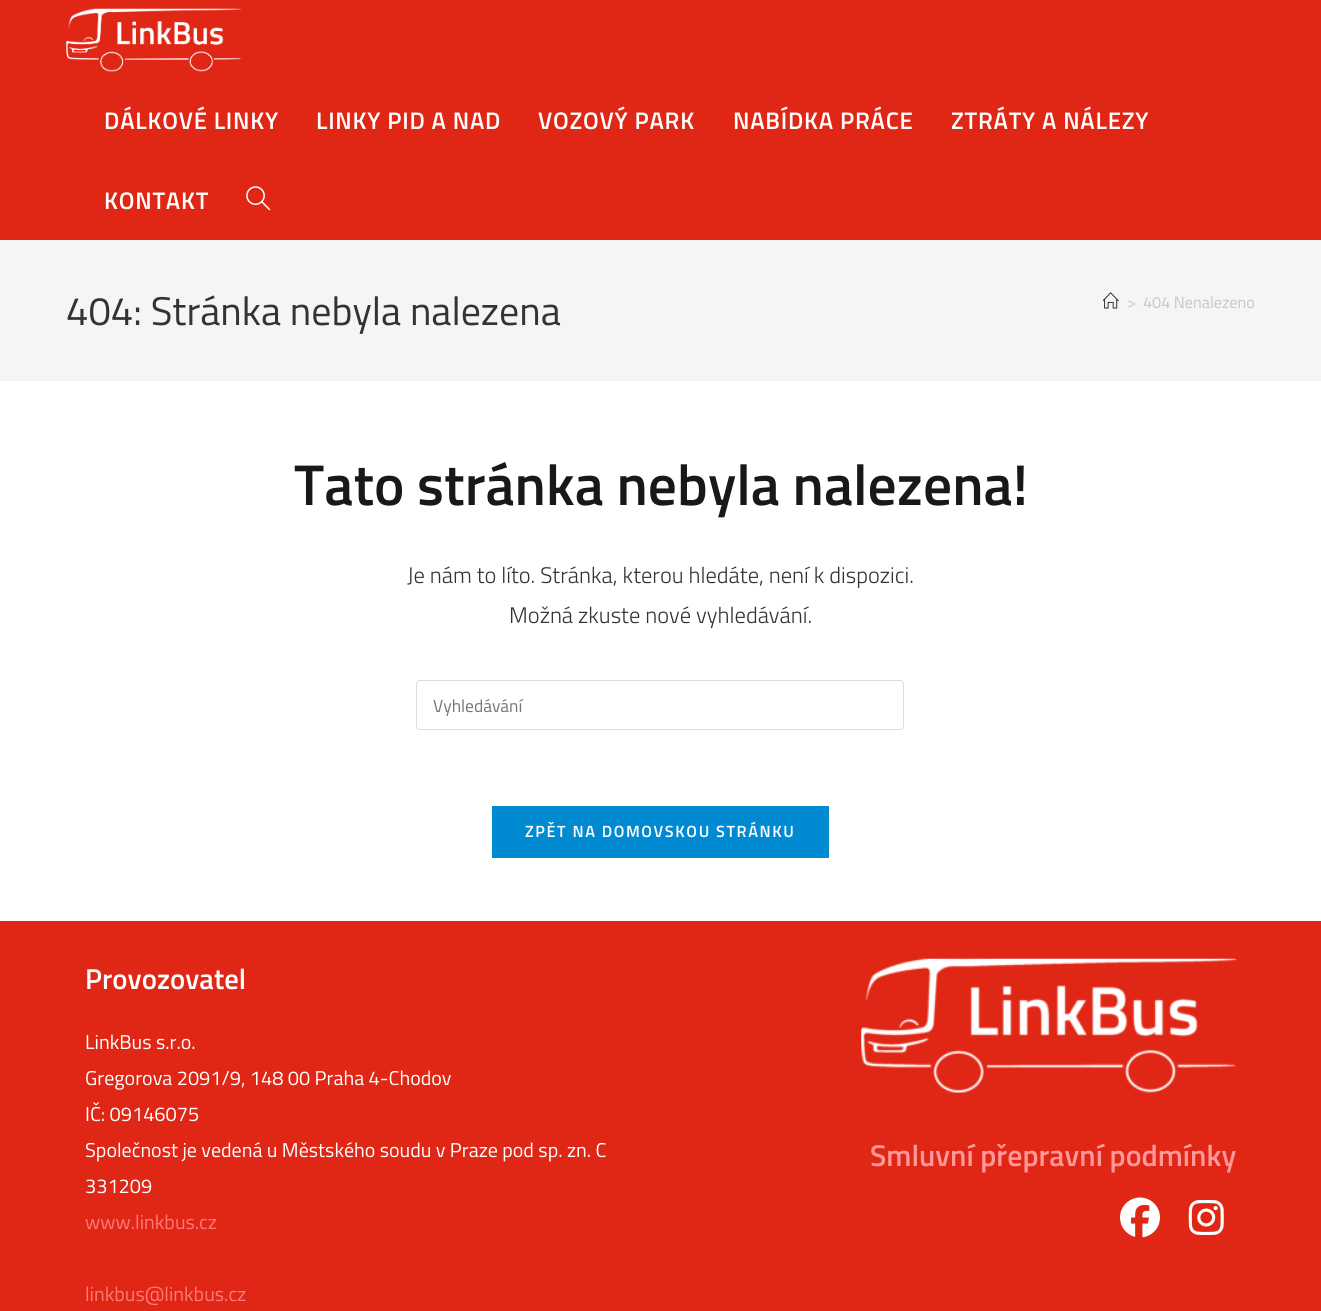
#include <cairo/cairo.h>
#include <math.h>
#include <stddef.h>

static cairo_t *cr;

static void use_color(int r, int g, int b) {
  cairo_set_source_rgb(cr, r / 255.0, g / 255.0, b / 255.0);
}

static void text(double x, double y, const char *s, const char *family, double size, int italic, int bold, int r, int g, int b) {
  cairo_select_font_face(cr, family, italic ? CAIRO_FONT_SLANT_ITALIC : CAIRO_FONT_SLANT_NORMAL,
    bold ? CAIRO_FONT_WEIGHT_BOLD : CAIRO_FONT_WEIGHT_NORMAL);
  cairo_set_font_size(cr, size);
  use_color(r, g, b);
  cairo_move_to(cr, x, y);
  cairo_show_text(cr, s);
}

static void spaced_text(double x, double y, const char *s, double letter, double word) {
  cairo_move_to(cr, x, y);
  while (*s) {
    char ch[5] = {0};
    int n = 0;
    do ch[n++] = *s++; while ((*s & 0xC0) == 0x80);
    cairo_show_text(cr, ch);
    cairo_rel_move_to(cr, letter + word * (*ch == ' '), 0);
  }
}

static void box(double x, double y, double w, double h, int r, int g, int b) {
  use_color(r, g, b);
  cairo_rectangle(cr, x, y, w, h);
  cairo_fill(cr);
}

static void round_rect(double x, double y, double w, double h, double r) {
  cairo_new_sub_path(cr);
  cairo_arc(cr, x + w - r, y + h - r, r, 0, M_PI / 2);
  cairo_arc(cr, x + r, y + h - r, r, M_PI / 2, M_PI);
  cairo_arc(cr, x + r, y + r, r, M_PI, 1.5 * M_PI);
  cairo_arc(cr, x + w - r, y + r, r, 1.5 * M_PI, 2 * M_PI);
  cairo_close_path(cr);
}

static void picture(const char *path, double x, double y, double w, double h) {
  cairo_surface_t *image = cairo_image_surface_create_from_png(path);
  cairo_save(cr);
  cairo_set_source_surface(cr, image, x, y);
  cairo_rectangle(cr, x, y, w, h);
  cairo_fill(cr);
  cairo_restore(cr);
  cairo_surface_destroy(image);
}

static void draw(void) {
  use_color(255, 255, 255);
  cairo_paint(cr);
  box(0, 0, 1321, 240, 224, 38, 21);
  picture("img_01.png", 66, 8, 176, 64);
  picture("img_02.png", 246, 186, 25, 25);
  box(0, 240, 1321, 141, 245, 245, 245);
  picture("img_03.png", 1103, 292, 16, 17);
  round_rect(416.5, 680.5, 487, 49, 3.5);
  use_color(221, 221, 221);
  cairo_set_line_width(cr, 1);
  cairo_stroke(cr);
  box(492, 806, 337, 52, 0, 138, 210);
  box(0, 921, 1321, 390, 224, 38, 21);
  picture("img_04.png", 861, 958, 376, 135);
  picture("img_05.png", 1120, 1197, 40, 41);
  picture("img_06.png", 1188, 1200, 36, 35);
  cairo_select_font_face(cr, "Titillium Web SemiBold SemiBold", CAIRO_FONT_SLANT_NORMAL, CAIRO_FONT_WEIGHT_NORMAL);
  cairo_set_font_size(cr, 24);
  use_color(255, 255, 255);
  spaced_text(104, 129, "DÁLKOVÉ LINKY", 0.75, 0);
  spaced_text(316, 129, "LINKY PID A NAD", 0.75, 0);
  spaced_text(538, 129, "VOZOVÝ PARK", 0.75, 0);
  spaced_text(733, 129, "NABÍDKA PRÁCE", 0.75, 0);
  spaced_text(951, 129, "ZTRÁTY A NÁLEZY", 0.75, 0);
  spaced_text(104, 209, "KONTAKT", 0.75, 0);
  text(66, 325, "404: Stránka nebyla nalezena", "Titillium Web", 40, 0, 0, 51, 51, 51);
  text(1127, 308, ">", "Titillium Web", 16.25, 0, 0, 198, 198, 198);
  text(1143, 308, "404 Nenalezeno", "Titillium Web", 16.25, 0, 0, 198, 198, 198);
  text(294, 505, "Tato stránka nebyla nalezena!", "Titillium Web SemiBold SemiBold", 57.5, 0, 0, 22, 24, 25);
  text(407, 583, "Je nám to líto. Stránka, kterou hledáte, není k dispozici.", "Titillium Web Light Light", 22.5, 0, 0, 51, 51, 51);
  text(509, 623, "Možná zkuste nové vyhledávání.", "Titillium Web Light Light", 22.5, 0, 0, 51, 51, 51);
  text(433, 712, "Vyhledávání", "Titillium Web", 17.5, 0, 0, 117, 117, 117);
  cairo_select_font_face(cr, "Titillium Web SemiBold SemiBold", CAIRO_FONT_SLANT_NORMAL, CAIRO_FONT_WEIGHT_NORMAL);
  cairo_set_font_size(cr, 16.25);
  use_color(255, 255, 255);
  spaced_text(525, 837, "ZPĚT NA DOMOVSKOU STRÁNKU", 1.6, 0);
  text(85, 989, "Provozovatel", "Titillium Web SemiBold SemiBold", 28.75, 0, 0, 255, 255, 255);
  text(85, 1049, "LinkBus s.r.o.", "Titillium Web", 20, 0, 0, 255, 255, 255);
  text(85, 1085, "Gregorova 2091/9, 148 00 Praha 4-Chodov", "Titillium Web", 20, 0, 0, 255, 255, 255);
  text(85, 1121, "IČ: 09146075", "Titillium Web", 20, 0, 0, 255, 255, 255);
  text(85, 1157, "Společnost je vedená u Městského soudu v Praze pod sp. zn. C", "Titillium Web", 20, 0, 0, 255, 255, 255);
  text(85, 1193, "331209", "Titillium Web", 20, 0, 0, 255, 255, 255);
  text(85, 1229, "www.linkbus.cz", "Titillium Web", 20, 0, 0, 255, 120, 120);
  text(85, 1301, "linkbus@linkbus.cz", "Titillium Web", 20, 0, 0, 255, 120, 120);
  text(870, 1166, "Smluvní přepravní podmínky", "Titillium Web SemiBold SemiBold", 30, 0, 0, 255, 153, 153);
}

int main(void) {
  cairo_surface_t *surface = cairo_image_surface_create(CAIRO_FORMAT_RGB24, 1321, 1311);
  cr = cairo_create(surface);
  cairo_font_options_t *options = cairo_font_options_create();
  cairo_font_options_set_hint_metrics(options, CAIRO_HINT_METRICS_OFF);
  cairo_font_options_set_hint_style(options, CAIRO_HINT_STYLE_NONE);
  cairo_set_font_options(cr, options);
  cairo_set_miter_limit(cr, 4);
  draw();
  cairo_surface_write_to_png(surface, "out.png");
  cairo_font_options_destroy(options);
  cairo_destroy(cr);
  cairo_surface_destroy(surface);
  return 0;
}
